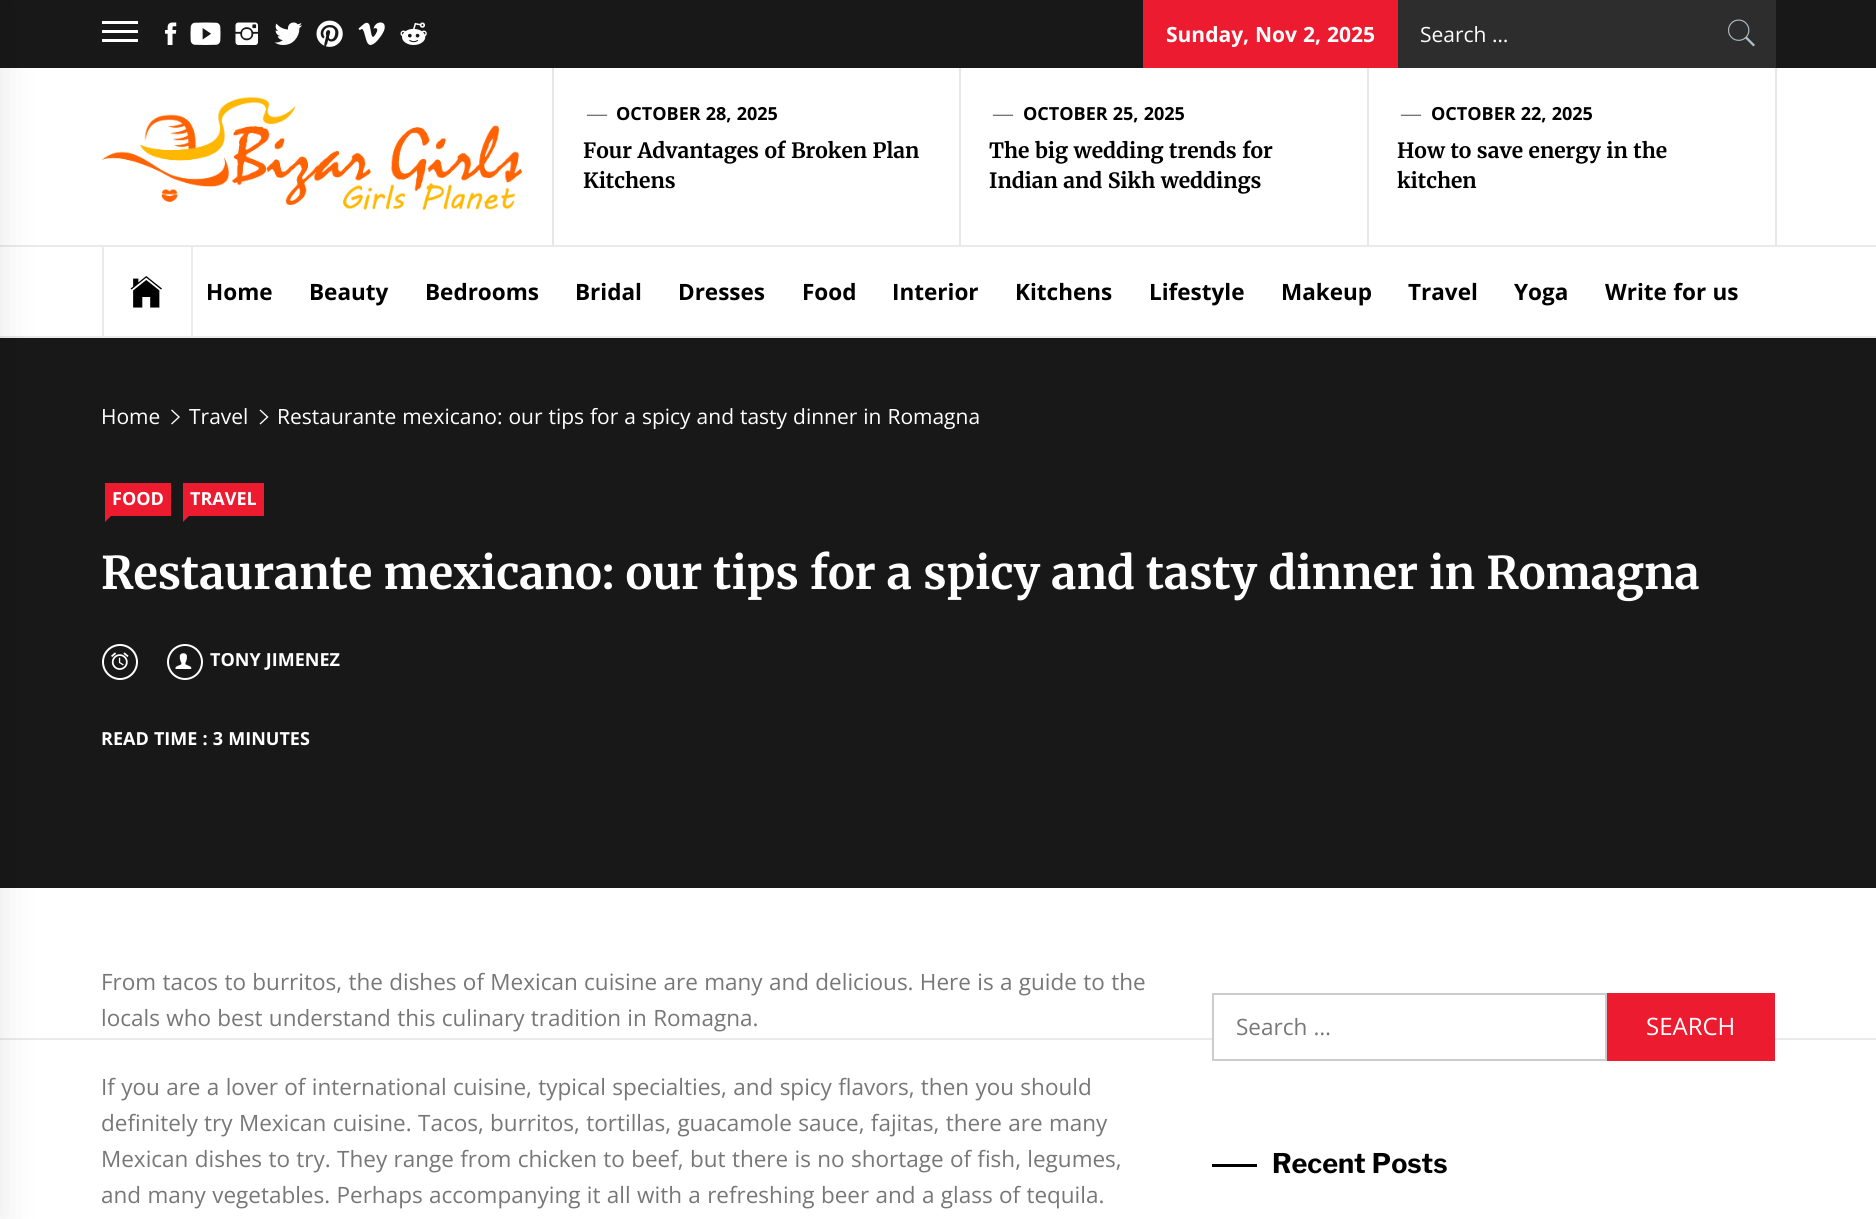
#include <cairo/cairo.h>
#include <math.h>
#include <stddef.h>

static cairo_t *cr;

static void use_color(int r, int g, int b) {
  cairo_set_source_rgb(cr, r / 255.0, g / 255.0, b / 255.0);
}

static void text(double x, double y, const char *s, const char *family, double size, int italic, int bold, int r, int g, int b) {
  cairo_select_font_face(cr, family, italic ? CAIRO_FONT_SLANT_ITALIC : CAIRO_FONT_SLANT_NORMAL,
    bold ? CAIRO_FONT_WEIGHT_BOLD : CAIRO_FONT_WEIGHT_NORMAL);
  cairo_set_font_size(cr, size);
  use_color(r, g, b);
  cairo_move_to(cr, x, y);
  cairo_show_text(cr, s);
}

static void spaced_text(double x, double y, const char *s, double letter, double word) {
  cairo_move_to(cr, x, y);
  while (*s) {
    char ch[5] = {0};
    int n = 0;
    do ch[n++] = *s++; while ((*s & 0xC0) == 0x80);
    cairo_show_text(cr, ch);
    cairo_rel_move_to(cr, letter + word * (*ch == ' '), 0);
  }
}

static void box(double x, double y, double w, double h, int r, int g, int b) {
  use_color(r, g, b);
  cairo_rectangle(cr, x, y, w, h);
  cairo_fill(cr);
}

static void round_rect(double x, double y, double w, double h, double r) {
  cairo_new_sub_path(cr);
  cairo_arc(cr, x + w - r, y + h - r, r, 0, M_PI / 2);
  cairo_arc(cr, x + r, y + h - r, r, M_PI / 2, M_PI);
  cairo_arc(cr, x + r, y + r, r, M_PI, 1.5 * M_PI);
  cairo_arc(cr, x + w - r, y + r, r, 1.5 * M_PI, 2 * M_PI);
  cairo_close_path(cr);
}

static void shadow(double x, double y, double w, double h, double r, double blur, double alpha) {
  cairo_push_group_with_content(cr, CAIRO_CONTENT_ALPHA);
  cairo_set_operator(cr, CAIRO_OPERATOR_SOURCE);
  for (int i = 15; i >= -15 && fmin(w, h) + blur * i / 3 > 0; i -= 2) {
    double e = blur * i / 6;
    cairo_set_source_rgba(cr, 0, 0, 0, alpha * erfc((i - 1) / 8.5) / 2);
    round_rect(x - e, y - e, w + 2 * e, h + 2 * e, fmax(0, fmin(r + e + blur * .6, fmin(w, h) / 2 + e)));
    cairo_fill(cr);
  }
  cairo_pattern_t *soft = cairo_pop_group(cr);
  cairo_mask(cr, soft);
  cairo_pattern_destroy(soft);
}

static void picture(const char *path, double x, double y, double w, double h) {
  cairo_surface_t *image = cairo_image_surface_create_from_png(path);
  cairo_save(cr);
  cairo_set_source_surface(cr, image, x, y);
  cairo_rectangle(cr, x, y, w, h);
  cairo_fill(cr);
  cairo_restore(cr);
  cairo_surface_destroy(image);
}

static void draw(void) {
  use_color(255, 255, 255);
  cairo_paint(cr);
  box(0, 0, 1876, 68, 24, 24, 24);
  box(0, 245, 1876, 2, 234, 234, 234);
  box(0, 336, 1876, 2, 234, 234, 234);
  box(0, 338, 1876, 550, 24, 24, 24);
  box(0, 1038, 1876, 2, 234, 234, 234);
  use_color(0, 0, 0);
  shadow(-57, 0, 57, 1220, 0, 19, 0.1);
  box(102, 21, 36, 3, 255, 255, 255);
  box(102, 30, 36, 3, 255, 255, 255);
  box(102, 39, 36, 3, 255, 255, 255);
  picture("img_01.png", 165, 22, 12, 23);
  picture("img_02.png", 190, 22, 31, 23);
  picture("img_03.png", 235, 22, 23, 23);
  picture("img_04.png", 274, 22, 28, 23);
  picture("img_05.png", 316, 20, 27, 27);
  picture("img_06.png", 358, 22, 27, 23);
  picture("img_07.png", 400, 22, 27, 23);
  box(1143, 0, 255, 68, 237, 27, 47);
  box(1398, 0, 378, 68, 45, 45, 45);
  picture("img_08.png", 1728, 19, 27, 28);
  picture("img_09.png", 102, 97, 420, 113);
  box(959, 68, 2, 177, 229, 232, 234);
  box(552, 68, 2, 177, 229, 232, 234);
  box(1367, 68, 2, 177, 229, 232, 234);
  box(1775, 68, 2, 177, 229, 232, 234);
  box(191, 246, 2, 90, 234, 234, 234);
  box(102, 246, 2, 90, 234, 234, 234);
  picture("img_10.png", 130, 276, 32, 32);
  picture("img_11.png", 171, 409, 9, 16);
  picture("img_12.png", 259, 409, 10, 16);
  box(105, 483, 66, 33, 237, 27, 47);
  cairo_new_path(cr);
  cairo_move_to(cr, 105, 522);
  cairo_line_to(cr, 105, 516);
  cairo_line_to(cr, 111, 516);
  cairo_close_path(cr);
  cairo_fill(cr);
  box(183, 483, 81, 33, 237, 27, 47);
  cairo_new_path(cr);
  cairo_move_to(cr, 183, 522);
  cairo_line_to(cr, 183, 516);
  cairo_line_to(cr, 189, 516);
  cairo_close_path(cr);
  cairo_fill(cr);
  cairo_arc(cr, 120, 662, 17, 0, 2 * M_PI);
  use_color(255, 255, 255);
  cairo_stroke(cr);
  picture("img_13.png", 111, 652, 18, 18);
  cairo_arc(cr, 185, 662, 17, 0, 2 * M_PI);
  cairo_stroke(cr);
  picture("img_14.png", 175, 653, 17, 16);
  box(1214, 1038, 391, 2, 255, 255, 255);
  cairo_rectangle(cr, 1213, 994, 393, 66);
  use_color(204, 204, 204);
  cairo_stroke(cr);
  box(1607, 993, 168, 68, 237, 27, 47);
  box(1212, 1164, 45, 3, 0, 0, 0);
  cairo_select_font_face(cr, "Open Sans", CAIRO_FONT_SLANT_NORMAL, CAIRO_FONT_WEIGHT_BOLD);
  cairo_set_font_size(cr, 21);
  use_color(255, 255, 255);
  spaced_text(1166, 42, "Sunday, Nov 2, 2025", 0, 0.5);
  text(1420, 42, "Search …", "Open Sans", 21, 0, 0, 255, 255, 255);
  text(587, 120, "—", "Liberation Serif", 20, 0, 1, 119, 119, 119);
  cairo_select_font_face(cr, "Open Sans", CAIRO_FONT_SLANT_NORMAL, CAIRO_FONT_WEIGHT_BOLD);
  cairo_set_font_size(cr, 18);
  use_color(0, 0, 0);
  spaced_text(616, 120, "OCTOBER 28, 2025", 0, 0.5);
  cairo_select_font_face(cr, "Merriweather", CAIRO_FONT_SLANT_NORMAL, CAIRO_FONT_WEIGHT_BOLD);
  cairo_set_font_size(cr, 21);
  spaced_text(583, 158, "Four Advantages of Broken Plan", 0, 0.5);
  text(583, 188, "Kitchens", "Merriweather", 21, 0, 1, 0, 0, 0);
  text(993, 120, "—", "Liberation Serif", 20, 0, 1, 119, 119, 119);
  cairo_select_font_face(cr, "Open Sans", CAIRO_FONT_SLANT_NORMAL, CAIRO_FONT_WEIGHT_BOLD);
  cairo_set_font_size(cr, 18);
  use_color(0, 0, 0);
  spaced_text(1023, 120, "OCTOBER 25, 2025", 0, 0.5);
  cairo_select_font_face(cr, "Merriweather", CAIRO_FONT_SLANT_NORMAL, CAIRO_FONT_WEIGHT_BOLD);
  cairo_set_font_size(cr, 21);
  spaced_text(989, 158, "The big wedding trends for", 0, 0.5);
  spaced_text(989, 188, "Indian and Sikh weddings", 0, 0.5);
  text(1401, 120, "—", "Liberation Serif", 20, 0, 1, 119, 119, 119);
  cairo_select_font_face(cr, "Open Sans", CAIRO_FONT_SLANT_NORMAL, CAIRO_FONT_WEIGHT_BOLD);
  cairo_set_font_size(cr, 18);
  use_color(0, 0, 0);
  spaced_text(1431, 120, "OCTOBER 22, 2025", 0, 0.5);
  cairo_select_font_face(cr, "Merriweather", CAIRO_FONT_SLANT_NORMAL, CAIRO_FONT_WEIGHT_BOLD);
  cairo_set_font_size(cr, 21);
  spaced_text(1397, 158, "How to save energy in the", 0, 0.5);
  text(1397, 188, "kitchen", "Merriweather", 21, 0, 1, 0, 0, 0);
  text(206, 300, "Home", "Open Sans", 22.5, 0, 1, 0, 0, 0);
  text(309, 300, "Beauty", "Open Sans", 22.5, 0, 1, 0, 0, 0);
  text(425, 300, "Bedrooms", "Open Sans", 22.5, 0, 1, 0, 0, 0);
  text(575, 300, "Bridal", "Open Sans", 22.5, 0, 1, 0, 0, 0);
  text(678, 300, "Dresses", "Open Sans", 22.5, 0, 1, 0, 0, 0);
  text(802, 300, "Food", "Open Sans", 22.5, 0, 1, 0, 0, 0);
  text(892, 300, "Interior", "Open Sans", 22.5, 0, 1, 0, 0, 0);
  text(1015, 300, "Kitchens", "Open Sans", 22.5, 0, 1, 0, 0, 0);
  text(1149, 300, "Lifestyle", "Open Sans", 22.5, 0, 1, 0, 0, 0);
  text(1281, 300, "Makeup", "Open Sans", 22.5, 0, 1, 0, 0, 0);
  text(1408, 300, "Travel", "Open Sans", 22.5, 0, 1, 0, 0, 0);
  text(1514, 300, "Yoga", "Open Sans", 22.5, 0, 1, 0, 0, 0);
  spaced_text(1605, 300, "Write for us", 0, 0.5);
  text(101, 424, "Home", "Open Sans", 21, 0, 0, 255, 255, 255);
  text(189, 424, "Travel", "Open Sans", 21, 0, 0, 255, 255, 255);
  spaced_text(277, 424, "Restaurante mexicano: our tips for a spicy and tasty dinner in Romagna", 0, 0.5);
  text(112, 505, "FOOD", "Open Sans", 18, 0, 1, 255, 255, 255);
  text(190, 505, "TRAVEL", "Open Sans", 18, 0, 1, 255, 255, 255);
  cairo_select_font_face(cr, "Merriweather", CAIRO_FONT_SLANT_NORMAL, CAIRO_FONT_WEIGHT_BOLD);
  cairo_set_font_size(cr, 45);
  spaced_text(101, 589, "Restaurante mexicano: our tips for a spicy and tasty dinner in Romagna", 0, 0.5);
  cairo_select_font_face(cr, "Open Sans", CAIRO_FONT_SLANT_NORMAL, CAIRO_FONT_WEIGHT_BOLD);
  cairo_set_font_size(cr, 18);
  spaced_text(210, 666, "TONY JIMENEZ", 0, 0.5);
  spaced_text(101, 745, "READ TIME : 3 MINUTES", 0, 0.5);
  cairo_select_font_face(cr, "Open Sans", CAIRO_FONT_SLANT_NORMAL, CAIRO_FONT_WEIGHT_NORMAL);
  cairo_set_font_size(cr, 22.5);
  use_color(119, 119, 119);
  spaced_text(101, 990, "From tacos to burritos, the dishes of Mexican cuisine are many and delicious. Here is a guide to the", 0, 0.5);
  spaced_text(101, 1026, "locals who best understand this culinary tradition in Romagna.", 0, 0.5);
  spaced_text(101, 1095, "If you are a lover of international cuisine, typical specialties, and spicy flavors, then you should", 0, 0.5);
  spaced_text(101, 1131, "definitely try Mexican cuisine. Tacos, burritos, tortillas, guacamole sauce, fajitas, there are many", 0, 0.5);
  spaced_text(101, 1167, "Mexican dishes to try. They range from chicken to beef, but there is no shortage of fish, legumes,", 0, 0.5);
  spaced_text(101, 1203, "and many vegetables. Perhaps accompanying it all with a refreshing beer and a glass of tequila.", 0, 0.5);
  spaced_text(1236, 1035, "Search …", 0, 0.5);
  text(1646, 1035, "SEARCH", "Open Sans", 24, 0, 0, 255, 255, 255);
  cairo_select_font_face(cr, "Libre Franklin", CAIRO_FONT_SLANT_NORMAL, CAIRO_FONT_WEIGHT_BOLD);
  cairo_set_font_size(cr, 27);
  use_color(0, 0, 0);
  spaced_text(1272, 1173, "Recent Posts", 0, 0.5);
}

int main(void) {
  cairo_surface_t *surface = cairo_image_surface_create(CAIRO_FORMAT_RGB24, 1876, 1219);
  cr = cairo_create(surface);
  cairo_font_options_t *options = cairo_font_options_create();
  cairo_font_options_set_hint_metrics(options, CAIRO_HINT_METRICS_OFF);
  cairo_font_options_set_hint_style(options, CAIRO_HINT_STYLE_NONE);
  cairo_set_font_options(cr, options);
  cairo_set_miter_limit(cr, 4);
  draw();
  cairo_surface_write_to_png(surface, "out.png");
  cairo_font_options_destroy(options);
  cairo_destroy(cr);
  cairo_surface_destroy(surface);
  return 0;
}
